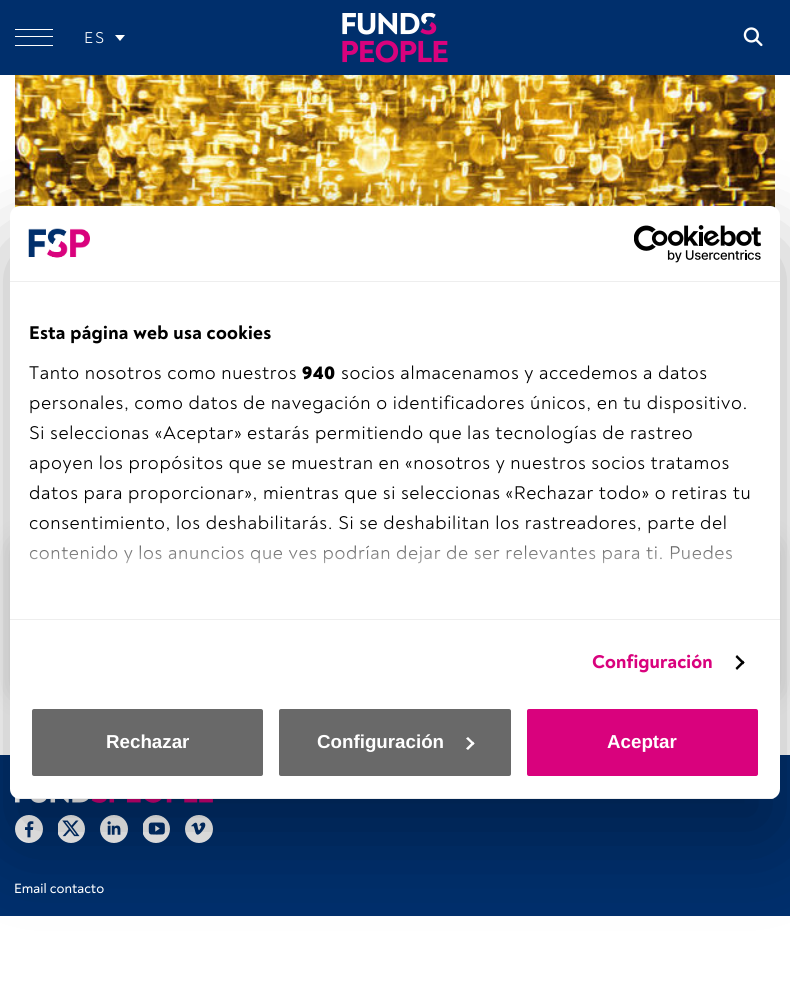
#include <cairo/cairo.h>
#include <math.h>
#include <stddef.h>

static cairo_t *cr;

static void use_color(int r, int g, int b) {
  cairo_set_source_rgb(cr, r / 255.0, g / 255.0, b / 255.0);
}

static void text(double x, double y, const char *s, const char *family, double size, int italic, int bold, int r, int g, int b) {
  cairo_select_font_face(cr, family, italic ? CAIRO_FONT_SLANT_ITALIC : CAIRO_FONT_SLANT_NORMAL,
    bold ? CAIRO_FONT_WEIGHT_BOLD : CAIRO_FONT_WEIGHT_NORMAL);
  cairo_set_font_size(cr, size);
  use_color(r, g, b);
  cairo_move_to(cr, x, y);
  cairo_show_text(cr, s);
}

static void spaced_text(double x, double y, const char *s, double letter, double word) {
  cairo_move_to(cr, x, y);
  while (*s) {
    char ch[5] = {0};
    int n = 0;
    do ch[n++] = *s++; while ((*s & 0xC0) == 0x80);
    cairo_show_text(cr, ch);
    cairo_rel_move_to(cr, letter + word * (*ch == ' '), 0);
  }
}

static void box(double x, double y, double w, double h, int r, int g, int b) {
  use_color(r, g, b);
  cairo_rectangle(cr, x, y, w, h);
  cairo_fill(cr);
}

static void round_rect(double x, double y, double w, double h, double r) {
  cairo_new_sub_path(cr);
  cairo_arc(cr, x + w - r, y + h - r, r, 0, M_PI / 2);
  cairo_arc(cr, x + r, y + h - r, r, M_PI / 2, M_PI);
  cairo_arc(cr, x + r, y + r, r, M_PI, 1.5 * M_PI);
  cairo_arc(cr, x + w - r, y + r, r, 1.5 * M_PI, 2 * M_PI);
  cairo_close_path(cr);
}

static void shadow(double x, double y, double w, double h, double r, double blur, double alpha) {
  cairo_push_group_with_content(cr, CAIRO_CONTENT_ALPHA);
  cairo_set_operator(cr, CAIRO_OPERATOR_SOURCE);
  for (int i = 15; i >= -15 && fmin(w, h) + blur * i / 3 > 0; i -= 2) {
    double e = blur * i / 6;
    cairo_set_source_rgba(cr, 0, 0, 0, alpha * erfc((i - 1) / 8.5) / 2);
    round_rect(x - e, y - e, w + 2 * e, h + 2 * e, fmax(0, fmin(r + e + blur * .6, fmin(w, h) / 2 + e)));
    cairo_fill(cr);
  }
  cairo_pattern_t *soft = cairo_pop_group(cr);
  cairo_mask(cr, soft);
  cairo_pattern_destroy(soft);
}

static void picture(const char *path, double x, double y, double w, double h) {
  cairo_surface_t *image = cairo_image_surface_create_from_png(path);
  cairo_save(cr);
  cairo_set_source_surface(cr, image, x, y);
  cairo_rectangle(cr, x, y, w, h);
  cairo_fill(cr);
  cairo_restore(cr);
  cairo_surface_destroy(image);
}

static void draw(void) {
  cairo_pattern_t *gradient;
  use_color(255, 255, 255);
  cairo_paint(cr);
  box(0, 0, 790, 75, 0, 47, 108);
  box(15, 29, 38, 1, 255, 255, 255);
  box(15, 36, 38, 1, 255, 255, 255);
  box(15, 45, 38, 1, 255, 255, 255);
  cairo_new_path(cr);
  cairo_move_to(cr, 115, 35);
  cairo_line_to(cr, 125, 35);
  cairo_line_to(cr, 120, 41);
  cairo_close_path(cr);
  cairo_fill(cr);
  picture("img_01.png", 342, 13, 106, 50);
  picture("img_02.png", 743, 27, 20, 20);
  picture("img_03.png", 15, 75, 760, 133);
  use_color(0, 0, 0);
  shadow(15, 543, 760, 150, 6, 12.5, 0.2);
  box(0, 755, 790, 161, 0, 47, 108);
  picture("img_06.png", 15, 797, 198, 6);
  picture("img_07.png", 15, 815, 28, 28);
  picture("img_08.png", 58, 815, 27, 28);
  picture("img_09.png", 100, 815, 28, 28);
  picture("img_10.png", 143, 815, 27, 28);
  picture("img_11.png", 185, 815, 28, 28);
  use_color(0, 0, 0);
  shadow(10, 246, 770, 593, 10, 42.5, 0.3);
  use_color(255, 255, 255);
  round_rect(10, 206, 770, 593, 10);
  cairo_fill(cr);
  box(10, 281, 770, 1, 238, 238, 238);
  picture("img_04.png", 28, 228, 62, 30);
  picture("img_05.png", 634, 225, 127, 38);
  box(10, 619, 770, 1, 238, 238, 238);
  use_color(0, 0, 0);
  cairo_new_path(cr);
  cairo_move_to(cr, 737, 655);
  cairo_line_to(cr, 744.5, 662.5);
  cairo_line_to(cr, 743, 664.5);
  cairo_line_to(cr, 735.5, 657);
  cairo_close_path(cr);
  cairo_fill(cr);
  cairo_new_path(cr);
  cairo_move_to(cr, 743, 660.5);
  cairo_line_to(cr, 744.5, 662.5);
  cairo_line_to(cr, 737, 670);
  cairo_line_to(cr, 735.5, 668);
  cairo_close_path(cr);
  cairo_fill(cr);
  cairo_save(cr);
  round_rect(10, 206, 770, 593, 10);
  cairo_clip(cr);
  box(10, 798, 770, 1, 238, 238, 238);
  cairo_restore(cr);
  use_color(105, 105, 105);
  round_rect(30.5, 707.5, 234, 70, 3.5);
  cairo_fill_preserve(cr);
  use_color(255, 255, 255);
  cairo_set_line_width(cr, 3);
  cairo_stroke(cr);
  use_color(105, 105, 105);
  round_rect(277.5, 707.5, 235, 70, 3.5);
  cairo_fill_preserve(cr);
  use_color(255, 255, 255);
  cairo_stroke(cr);
  cairo_new_path(cr);
  cairo_move_to(cr, 468, 737);
  cairo_line_to(cr, 474.5, 743.5);
  cairo_line_to(cr, 473, 745);
  cairo_line_to(cr, 466, 738.5);
  cairo_close_path(cr);
  cairo_fill(cr);
  cairo_new_path(cr);
  cairo_move_to(cr, 473, 741.5);
  cairo_line_to(cr, 474.5, 743.5);
  cairo_line_to(cr, 468, 750);
  cairo_line_to(cr, 466, 748.5);
  cairo_close_path(cr);
  cairo_fill(cr);
  use_color(217, 2, 125);
  round_rect(525.5, 707.5, 234, 70, 3.5);
  cairo_fill_preserve(cr);
  use_color(255, 255, 255);
  cairo_stroke(cr);
  cairo_select_font_face(cr, "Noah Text", CAIRO_FONT_SLANT_NORMAL, CAIRO_FONT_WEIGHT_NORMAL);
  cairo_set_font_size(cr, 16);
  spaced_text(84, 43, "ES", 2, 0);
  cairo_select_font_face(cr, "Noah Text ExtraBold", CAIRO_FONT_SLANT_NORMAL, CAIRO_FONT_WEIGHT_NORMAL);
  cairo_set_font_size(cr, 18.75);
  use_color(0, 0, 0);
  spaced_text(29, 339, "Esta página web usa cookies", 0.3, 0);
  cairo_select_font_face(cr, "Noah Text", CAIRO_FONT_SLANT_NORMAL, CAIRO_FONT_WEIGHT_NORMAL);
  spaced_text(29, 379, "Tanto nosotros como nuestros", 0.62, 0);
  cairo_select_font_face(cr, "Noah Text Black", CAIRO_FONT_SLANT_NORMAL, CAIRO_FONT_WEIGHT_NORMAL);
  spaced_text(302, 379, "940", 0.62, 0);
  cairo_select_font_face(cr, "Noah Text", CAIRO_FONT_SLANT_NORMAL, CAIRO_FONT_WEIGHT_NORMAL);
  spaced_text(341, 379, "socios almacenamos y accedemos a datos", 0.62, 0);
  spaced_text(29, 409, "personales, como datos de navegación o identificadores únicos, en tu dispositivo.", 0.62, 0);
  spaced_text(29, 439, "Si seleccionas «Aceptar» estarás permitiendo que las tecnologías de rastreo", 0.62, 0);
  spaced_text(29, 469, "apoyen los propósitos que se muestran en «nosotros y nuestros socios tratamos", 0.62, 0);
  spaced_text(29, 499, "datos para proporcionar», mientras que si seleccionas «Rechazar todo» o retiras tu", 0.62, 0);
  spaced_text(29, 529, "consentimiento, los deshabilitarás. Si se deshabilitan los rastreadores, parte del", 0.62, 0);
  spaced_text(29, 559, "contenido y los anuncios que ves podrían dejar de ser relevantes para ti. Puedes", 0.62, 0);
  gradient = cairo_pattern_create_linear(387, 619, 387, 525);
  cairo_pattern_add_color_stop_rgba(gradient, 0, 1, 1, 1, 1);
  cairo_pattern_add_color_stop_rgba(gradient, 0.5, 1, 1, 1, 0.8);
  cairo_pattern_add_color_stop_rgba(gradient, 1, 1, 1, 1, 0);
  cairo_set_source(cr, gradient);
  cairo_pattern_destroy(gradient);
  cairo_rectangle(cr, 29, 526, 704, 38);
  cairo_fill(cr);
  cairo_select_font_face(cr, "Noah Text ExtraBold", CAIRO_FONT_SLANT_NORMAL, CAIRO_FONT_WEIGHT_NORMAL);
  use_color(217, 2, 125);
  spaced_text(592, 668, "Configuración", 0.1, 0);
  text(106, 748, "Rechazar", "Liberation Sans", 18.75, 0, 1, 255, 255, 255);
  text(317, 748, "Configuración", "Liberation Sans", 18.75, 0, 1, 255, 255, 255);
  text(607, 748, "Aceptar", "Liberation Sans", 18.75, 0, 1, 255, 255, 255);
  text(14, 893, "Email contacto", "Noah Text Medium", 13.75, 0, 0, 255, 255, 255);
}

int main(void) {
  cairo_surface_t *surface = cairo_image_surface_create(CAIRO_FORMAT_RGB24, 790, 1003);
  cr = cairo_create(surface);
  cairo_font_options_t *options = cairo_font_options_create();
  cairo_font_options_set_hint_metrics(options, CAIRO_HINT_METRICS_OFF);
  cairo_font_options_set_hint_style(options, CAIRO_HINT_STYLE_NONE);
  cairo_set_font_options(cr, options);
  cairo_set_miter_limit(cr, 4);
  draw();
  cairo_surface_write_to_png(surface, "out.png");
  cairo_font_options_destroy(options);
  cairo_destroy(cr);
  cairo_surface_destroy(surface);
  return 0;
}
